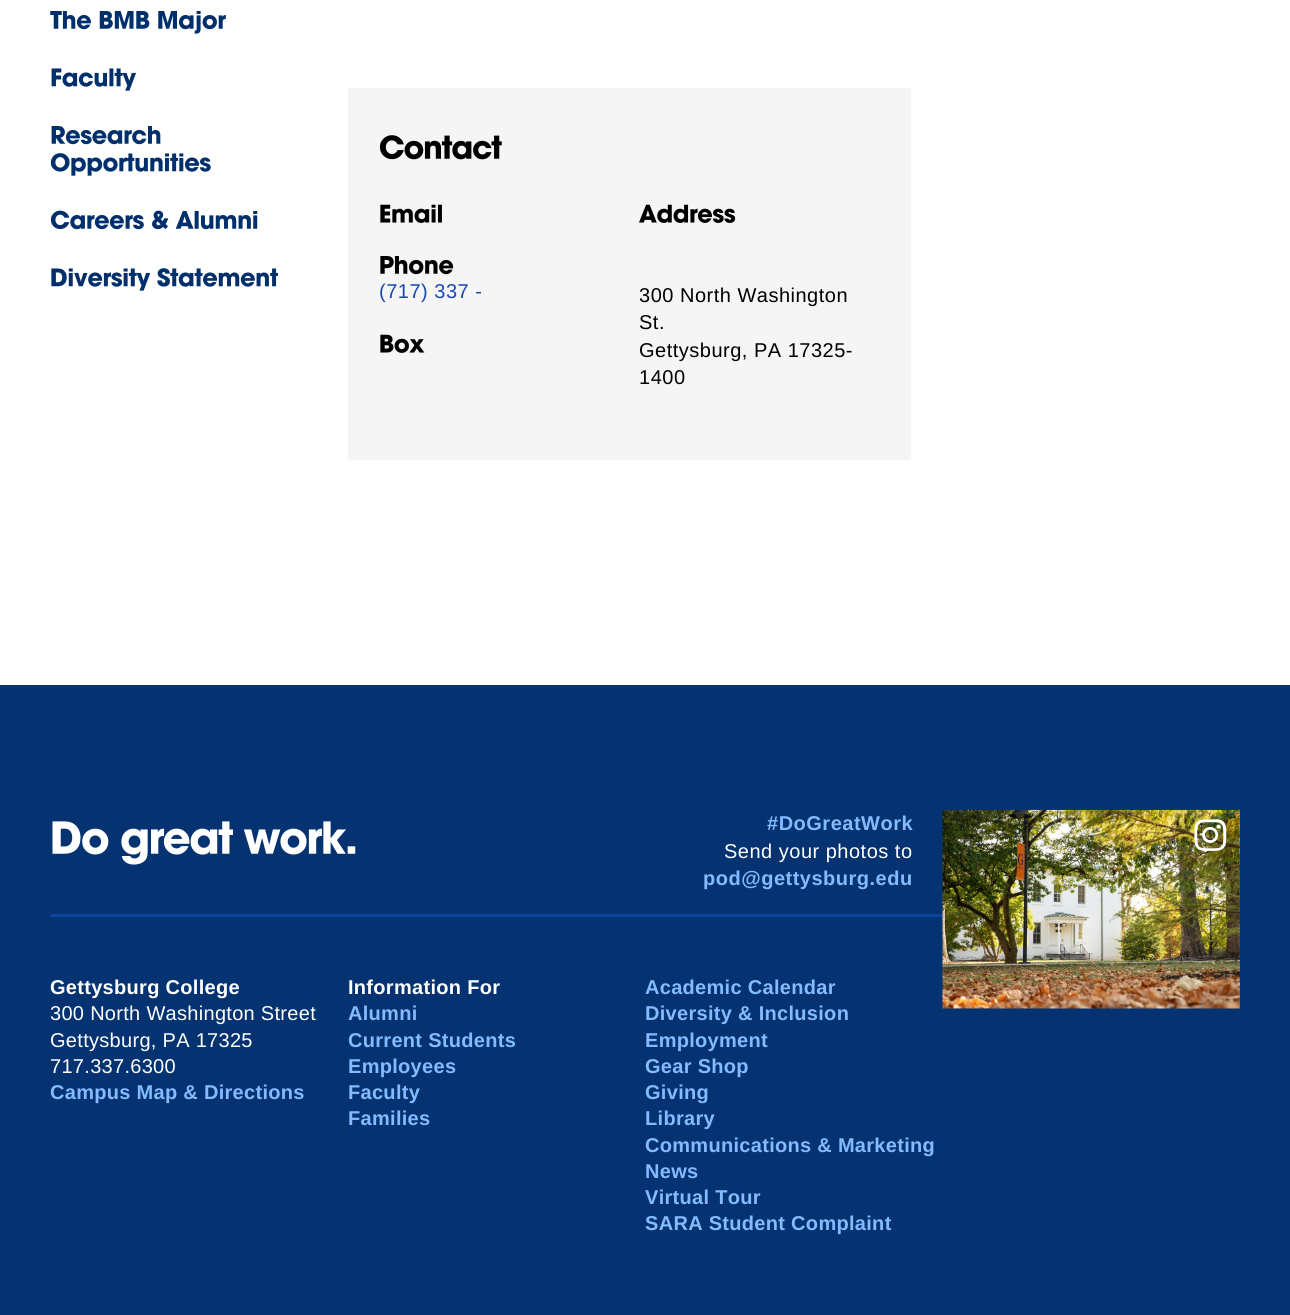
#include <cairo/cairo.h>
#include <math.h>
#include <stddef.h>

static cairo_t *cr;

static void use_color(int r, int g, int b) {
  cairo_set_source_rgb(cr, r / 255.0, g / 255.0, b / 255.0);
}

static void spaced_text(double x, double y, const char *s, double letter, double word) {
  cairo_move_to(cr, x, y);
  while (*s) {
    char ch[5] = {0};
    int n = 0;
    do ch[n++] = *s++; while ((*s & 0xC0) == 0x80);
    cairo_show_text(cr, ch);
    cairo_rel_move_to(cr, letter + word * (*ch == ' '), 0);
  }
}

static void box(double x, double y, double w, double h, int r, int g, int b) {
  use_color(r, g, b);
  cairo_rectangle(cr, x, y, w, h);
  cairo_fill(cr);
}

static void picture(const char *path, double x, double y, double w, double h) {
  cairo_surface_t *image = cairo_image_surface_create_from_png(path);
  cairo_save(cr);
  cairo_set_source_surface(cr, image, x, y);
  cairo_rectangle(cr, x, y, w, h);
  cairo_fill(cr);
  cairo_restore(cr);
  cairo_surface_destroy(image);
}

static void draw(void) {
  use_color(255, 255, 255);
  cairo_paint(cr);
  picture("img_01.png", 50, 11, 176, 23);
  picture("img_02.png", 51, 68, 85, 23);
  picture("img_03.png", 51, 126, 110, 19);
  picture("img_04.png", 50, 153, 161, 23);
  picture("img_05.png", 50, 210, 208, 20);
  picture("img_06.png", 51, 268, 227, 23);
  box(348, 88, 563, 372, 245, 245, 245);
  picture("img_07.png", 379, 135, 123, 25);
  picture("img_08.png", 380, 204, 62, 19);
  picture("img_09.png", 380, 256, 74, 19);
  picture("img_10.png", 380, 334, 45, 19);
  picture("img_11.png", 639, 204, 97, 19);
  box(0, 685, 1290, 630, 5, 51, 113);
  box(50, 914, 893, 3, 11, 69, 158);
  picture("img_12.png", 52, 821, 304, 44);
  picture("img_13.png", 942, 809, 298, 200);
  picture("img_14.png", 1194, 819, 33, 32);
  cairo_select_font_face(cr, "Liberation Sans", CAIRO_FONT_SLANT_NORMAL, CAIRO_FONT_WEIGHT_NORMAL);
  cairo_set_font_size(cr, 20);
  use_color(25, 72, 180);
  spaced_text(379, 298, "(717) 337 -", 0.5, 0);
  use_color(0, 0, 0);
  spaced_text(639, 302, "300 North Washington", 0.5, 0);
  spaced_text(639, 329, "St.", 0.5, 0);
  spaced_text(639, 357, "Gettysburg, PA 17325-", 0.5, 0);
  spaced_text(639, 384, "1400", 0.5, 0);
  cairo_select_font_face(cr, "Liberation Sans", CAIRO_FONT_SLANT_NORMAL, CAIRO_FONT_WEIGHT_BOLD);
  use_color(132, 186, 255);
  spaced_text(767, 830, "#DoGreatWork", 0.5, 0);
  cairo_select_font_face(cr, "Liberation Sans", CAIRO_FONT_SLANT_NORMAL, CAIRO_FONT_WEIGHT_NORMAL);
  use_color(255, 255, 255);
  spaced_text(724, 858, "Send your photos to", 0.5, 0);
  cairo_select_font_face(cr, "Liberation Sans", CAIRO_FONT_SLANT_NORMAL, CAIRO_FONT_WEIGHT_BOLD);
  use_color(132, 186, 255);
  spaced_text(703, 885, "pod@gettysburg.edu", 0.5, 0);
  use_color(255, 255, 255);
  spaced_text(50, 994, "Gettysburg College", 0.3, 0);
  cairo_select_font_face(cr, "Liberation Sans", CAIRO_FONT_SLANT_NORMAL, CAIRO_FONT_WEIGHT_NORMAL);
  spaced_text(50, 1020, "300 North Washington Street", 0.3, 0);
  spaced_text(50, 1047, "Gettysburg, PA 17325", 0.3, 0);
  spaced_text(50, 1073, "717.337.6300", 0.3, 0);
  cairo_select_font_face(cr, "Liberation Sans", CAIRO_FONT_SLANT_NORMAL, CAIRO_FONT_WEIGHT_BOLD);
  use_color(132, 186, 255);
  spaced_text(50, 1099, "Campus Map & Directions", 0.3, 0);
  use_color(255, 255, 255);
  spaced_text(348, 994, "Information For", 0.3, 0);
  use_color(132, 186, 255);
  spaced_text(348, 1020, "Alumni", 0.3, 0);
  spaced_text(348, 1047, "Current Students", 0.3, 0);
  spaced_text(348, 1073, "Employees", 0.3, 0);
  spaced_text(348, 1099, "Faculty", 0.3, 0);
  spaced_text(348, 1125, "Families", 0.3, 0);
  spaced_text(645, 994, "Academic Calendar", 0.3, 0);
  spaced_text(645, 1020, "Diversity & Inclusion", 0.3, 0);
  spaced_text(645, 1047, "Employment", 0.3, 0);
  spaced_text(645, 1073, "Gear Shop", 0.3, 0);
  spaced_text(645, 1099, "Giving", 0.3, 0);
  spaced_text(645, 1125, "Library", 0.3, 0);
  spaced_text(645, 1152, "Communications & Marketing", 0.3, 0);
  spaced_text(645, 1178, "News", 0.3, 0);
  spaced_text(645, 1204, "Virtual Tour", 0.3, 0);
  spaced_text(645, 1230, "SARA Student Complaint", 0.3, 0);
}

int main(void) {
  cairo_surface_t *surface = cairo_image_surface_create(CAIRO_FORMAT_RGB24, 1290, 1315);
  cr = cairo_create(surface);
  cairo_font_options_t *options = cairo_font_options_create();
  cairo_font_options_set_hint_metrics(options, CAIRO_HINT_METRICS_OFF);
  cairo_font_options_set_hint_style(options, CAIRO_HINT_STYLE_NONE);
  cairo_set_font_options(cr, options);
  cairo_set_miter_limit(cr, 4);
  draw();
  cairo_surface_write_to_png(surface, "out.png");
  cairo_font_options_destroy(options);
  cairo_destroy(cr);
  cairo_surface_destroy(surface);
  return 0;
}
